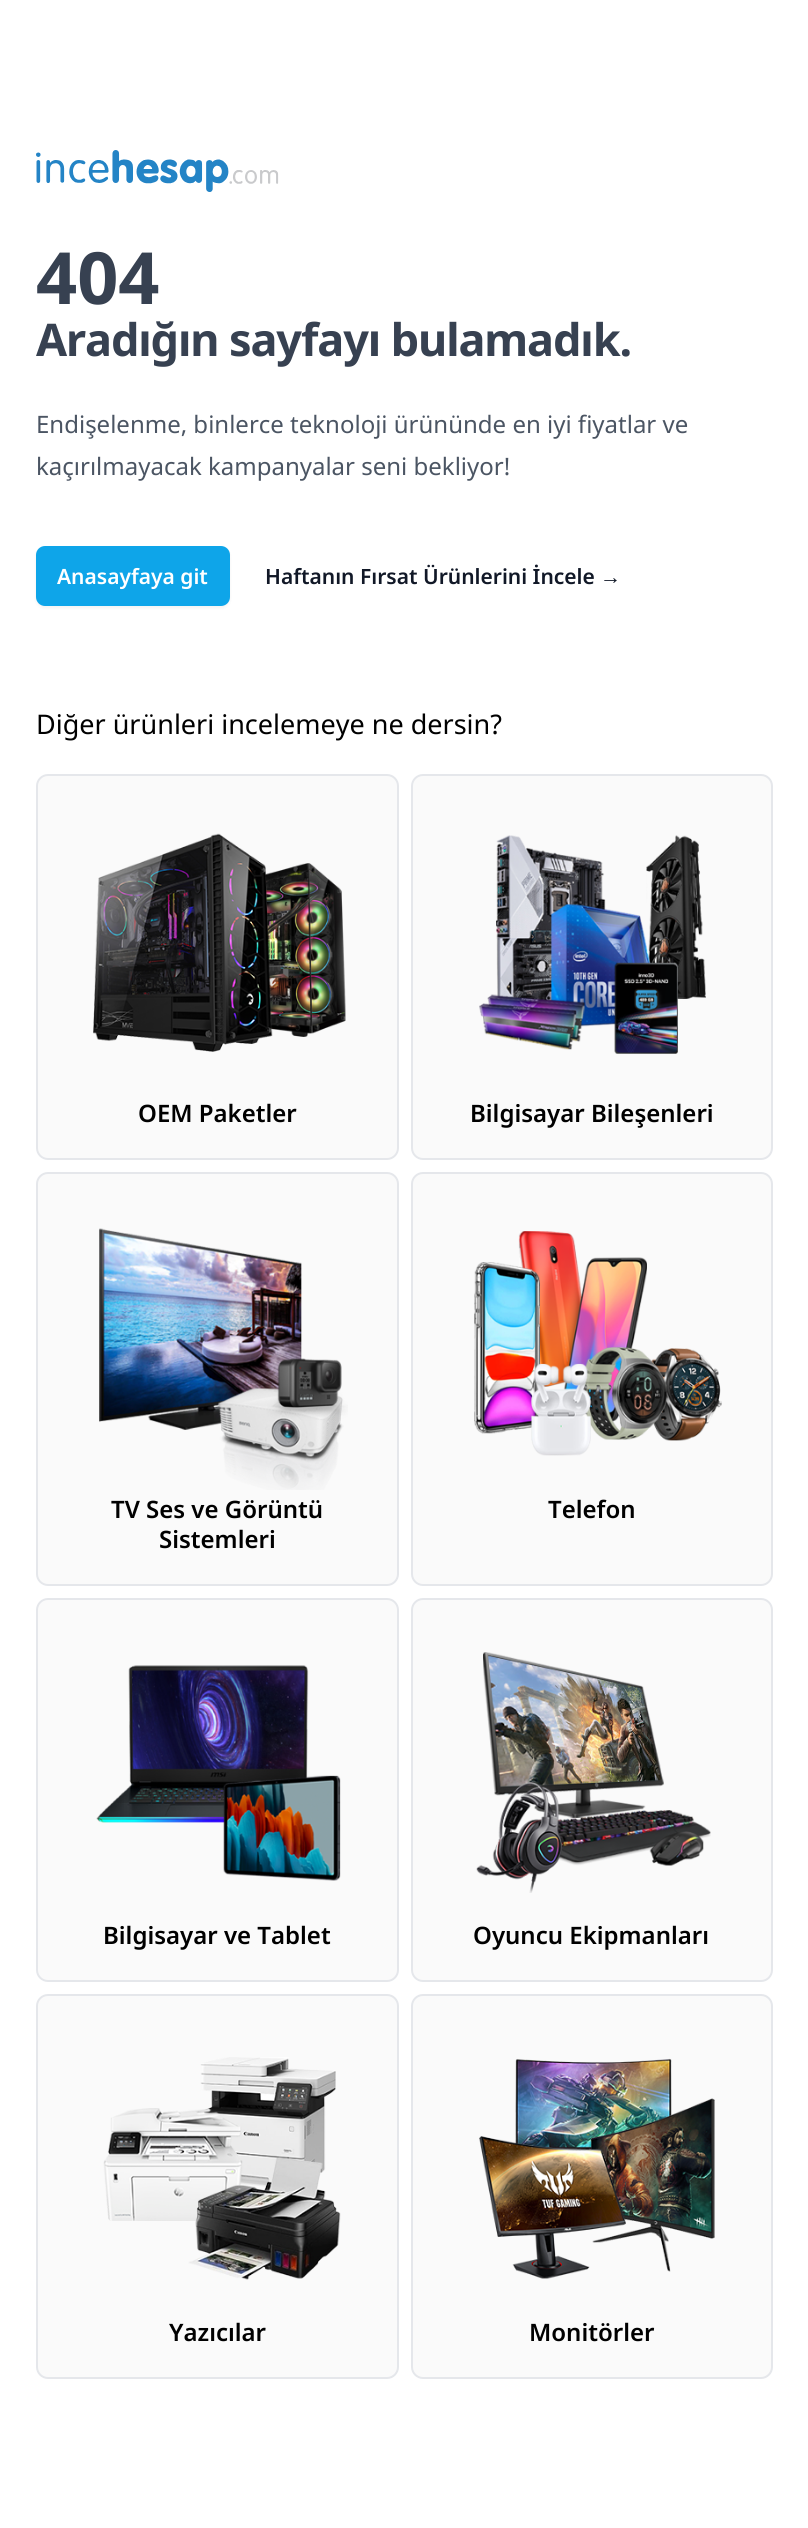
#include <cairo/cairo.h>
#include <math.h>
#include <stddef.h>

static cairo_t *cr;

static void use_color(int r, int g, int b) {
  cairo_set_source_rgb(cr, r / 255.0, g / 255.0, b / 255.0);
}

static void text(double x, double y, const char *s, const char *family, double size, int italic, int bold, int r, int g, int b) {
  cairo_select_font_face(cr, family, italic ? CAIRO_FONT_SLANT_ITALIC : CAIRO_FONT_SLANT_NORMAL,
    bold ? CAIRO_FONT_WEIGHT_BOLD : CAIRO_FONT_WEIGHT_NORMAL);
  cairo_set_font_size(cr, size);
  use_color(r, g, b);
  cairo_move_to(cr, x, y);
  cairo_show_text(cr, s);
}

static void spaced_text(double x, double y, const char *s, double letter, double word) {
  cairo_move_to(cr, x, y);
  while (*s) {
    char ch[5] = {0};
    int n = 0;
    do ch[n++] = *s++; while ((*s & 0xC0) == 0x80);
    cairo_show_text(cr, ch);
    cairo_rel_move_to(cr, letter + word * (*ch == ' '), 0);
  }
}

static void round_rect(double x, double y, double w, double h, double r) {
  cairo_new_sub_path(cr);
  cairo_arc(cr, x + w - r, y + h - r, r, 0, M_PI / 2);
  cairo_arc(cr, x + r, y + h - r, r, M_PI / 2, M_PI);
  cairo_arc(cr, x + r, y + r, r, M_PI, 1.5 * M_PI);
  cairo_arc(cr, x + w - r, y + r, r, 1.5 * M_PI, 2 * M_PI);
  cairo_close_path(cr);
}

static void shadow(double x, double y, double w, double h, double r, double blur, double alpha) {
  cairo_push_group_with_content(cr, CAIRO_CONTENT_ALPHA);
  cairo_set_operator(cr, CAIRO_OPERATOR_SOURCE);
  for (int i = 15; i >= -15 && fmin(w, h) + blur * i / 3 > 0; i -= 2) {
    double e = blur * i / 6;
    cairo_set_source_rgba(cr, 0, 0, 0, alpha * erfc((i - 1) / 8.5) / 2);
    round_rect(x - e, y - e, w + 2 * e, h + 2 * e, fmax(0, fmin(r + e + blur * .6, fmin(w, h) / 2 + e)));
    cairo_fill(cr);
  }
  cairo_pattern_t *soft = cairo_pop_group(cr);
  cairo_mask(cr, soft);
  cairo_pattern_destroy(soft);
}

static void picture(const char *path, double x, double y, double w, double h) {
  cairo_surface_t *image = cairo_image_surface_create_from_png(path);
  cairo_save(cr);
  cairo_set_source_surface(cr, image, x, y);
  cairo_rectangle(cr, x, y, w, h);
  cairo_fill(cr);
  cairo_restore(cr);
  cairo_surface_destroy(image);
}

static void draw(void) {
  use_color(255, 255, 255);
  cairo_paint(cr);
  picture("img_01.png", 36, 150, 243, 42);
  use_color(0, 0, 0);
  shadow(36, 548, 194, 60, 9, 1.5, 0.05);
  use_color(14, 165, 233);
  round_rect(36, 546, 194, 60, 9);
  cairo_fill(cr);
  use_color(250, 250, 250);
  round_rect(37, 775, 361, 384, 11);
  cairo_fill_preserve(cr);
  use_color(229, 231, 235);
  cairo_stroke(cr);
  picture("img_02.png", 93, 833, 253, 219);
  use_color(250, 250, 250);
  round_rect(412, 775, 360, 384, 11);
  cairo_fill_preserve(cr);
  use_color(229, 231, 235);
  cairo_stroke(cr);
  picture("img_03.png", 479, 835, 227, 219);
  use_color(250, 250, 250);
  round_rect(37, 1173, 361, 412, 11);
  cairo_fill_preserve(cr);
  use_color(229, 231, 235);
  cairo_stroke(cr);
  picture("img_04.png", 99, 1228, 249, 262);
  use_color(250, 250, 250);
  round_rect(412, 1173, 360, 412, 11);
  cairo_fill_preserve(cr);
  use_color(229, 231, 235);
  cairo_stroke(cr);
  picture("img_05.png", 474, 1231, 248, 225);
  use_color(250, 250, 250);
  round_rect(37, 1599, 361, 382, 11);
  cairo_fill_preserve(cr);
  use_color(229, 231, 235);
  cairo_stroke(cr);
  picture("img_06.png", 96, 1665, 245, 216);
  use_color(250, 250, 250);
  round_rect(412, 1599, 360, 382, 11);
  cairo_fill_preserve(cr);
  use_color(229, 231, 235);
  cairo_stroke(cr);
  picture("img_07.png", 476, 1652, 235, 241);
  use_color(250, 250, 250);
  round_rect(37, 1995, 361, 383, 11);
  cairo_fill_preserve(cr);
  use_color(229, 231, 235);
  cairo_stroke(cr);
  picture("img_08.png", 103, 2057, 238, 223);
  use_color(250, 250, 250);
  round_rect(412, 1995, 360, 383, 11);
  cairo_fill_preserve(cr);
  use_color(229, 231, 235);
  cairo_stroke(cr);
  picture("img_09.png", 479, 2058, 236, 221);
  text(36, 304, "404", "Noto Sans", 72, 0, 1, 55, 65, 81);
  cairo_set_font_size(cr, 45);
  spaced_text(36, 356, "Aradığın sayfayı bulamadık.", -1.1, 0);
  text(36, 433, "Endişelenme, binlerce teknoloji ürününde en iyi fiyatlar ve", "Noto Sans", 24, 0, 0, 75, 85, 99);
  text(36, 475, "kaçırılmayacak kampanyalar seni bekliyor!", "Noto Sans", 24, 0, 0, 75, 85, 99);
  text(57, 584, "Anasayfaya git", "Noto Sans SemiBold", 21, 0, 0, 255, 255, 255);
  text(265, 584, "Haftanın Fırsat Ürünlerini İncele", "Noto Sans SemiBold", 21, 0, 0, 17, 24, 39);
  text(600, 584, "→", "Liberation Sans", 21, 0, 1, 17, 24, 39);
  text(36, 734, "Diğer ürünleri incelemeye ne dersin?", "Noto Sans", 27, 0, 0, 0, 0, 0);
  text(138, 1122, "OEM Paketler", "Noto Sans SemiBold", 24, 0, 0, 0, 0, 0);
  text(470, 1122, "Bilgisayar Bileşenleri", "Noto Sans SemiBold", 24, 0, 0, 0, 0, 0);
  text(111, 1518, "TV Ses ve Görüntü", "Noto Sans SemiBold", 24, 0, 0, 0, 0, 0);
  text(159, 1548, "Sistemleri", "Noto Sans SemiBold", 24, 0, 0, 0, 0, 0);
  text(548, 1518, "Telefon", "Noto Sans SemiBold", 24, 0, 0, 0, 0, 0);
  text(103, 1944, "Bilgisayar ve Tablet", "Noto Sans SemiBold", 24, 0, 0, 0, 0, 0);
  text(473, 1944, "Oyuncu Ekipmanları", "Noto Sans SemiBold", 24, 0, 0, 0, 0, 0);
  text(169, 2341, "Yazıcılar", "Noto Sans SemiBold", 24, 0, 0, 0, 0, 0);
  text(529, 2341, "Monitörler", "Noto Sans SemiBold", 24, 0, 0, 0, 0, 0);
}

int main(void) {
  cairo_surface_t *surface = cairo_image_surface_create(CAIRO_FORMAT_RGB24, 808, 2528);
  cr = cairo_create(surface);
  cairo_font_options_t *options = cairo_font_options_create();
  cairo_font_options_set_hint_metrics(options, CAIRO_HINT_METRICS_OFF);
  cairo_font_options_set_hint_style(options, CAIRO_HINT_STYLE_NONE);
  cairo_set_font_options(cr, options);
  cairo_set_miter_limit(cr, 4);
  draw();
  cairo_surface_write_to_png(surface, "out.png");
  cairo_font_options_destroy(options);
  cairo_destroy(cr);
  cairo_surface_destroy(surface);
  return 0;
}
